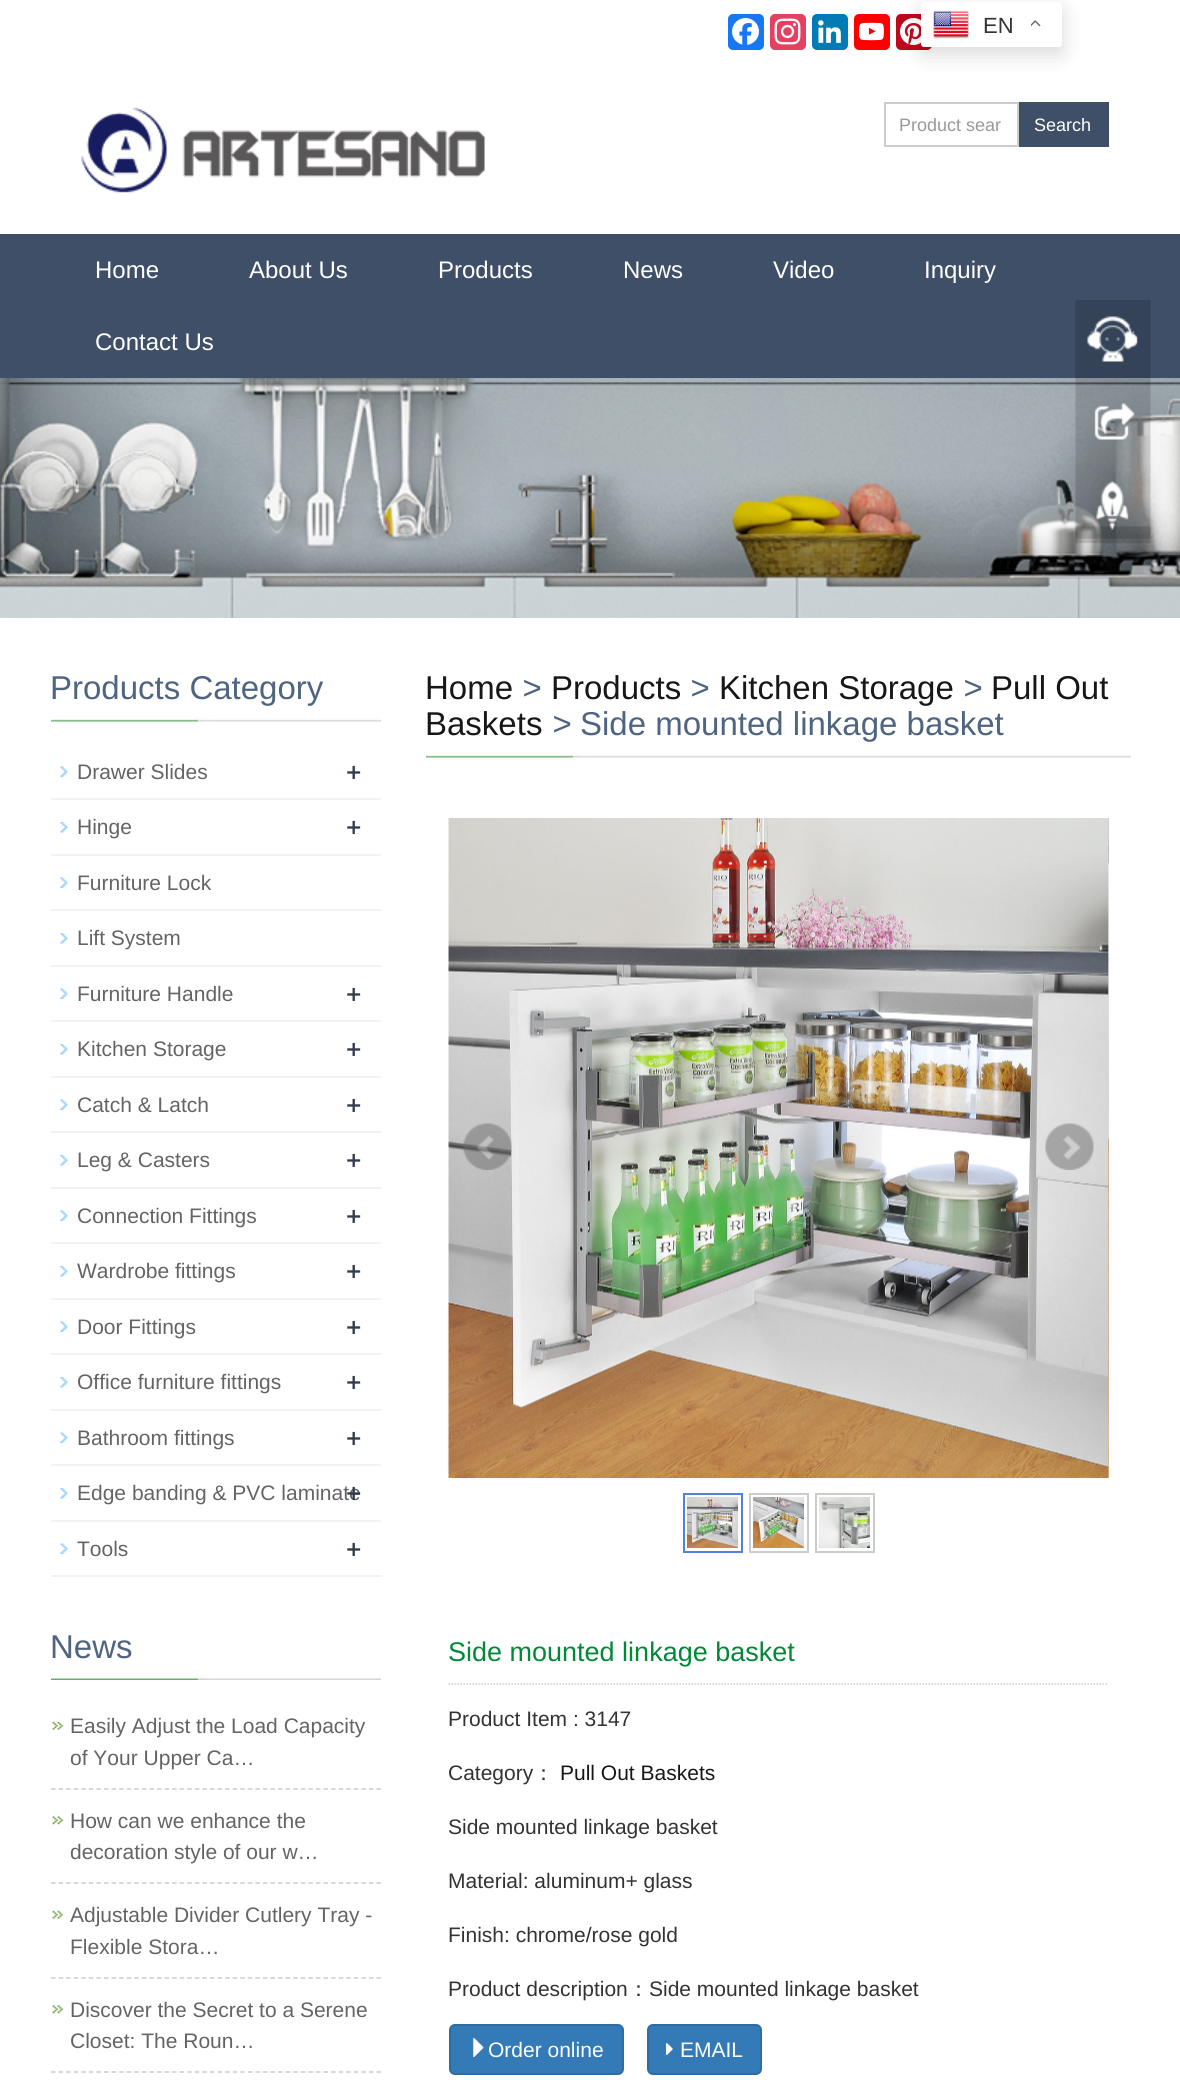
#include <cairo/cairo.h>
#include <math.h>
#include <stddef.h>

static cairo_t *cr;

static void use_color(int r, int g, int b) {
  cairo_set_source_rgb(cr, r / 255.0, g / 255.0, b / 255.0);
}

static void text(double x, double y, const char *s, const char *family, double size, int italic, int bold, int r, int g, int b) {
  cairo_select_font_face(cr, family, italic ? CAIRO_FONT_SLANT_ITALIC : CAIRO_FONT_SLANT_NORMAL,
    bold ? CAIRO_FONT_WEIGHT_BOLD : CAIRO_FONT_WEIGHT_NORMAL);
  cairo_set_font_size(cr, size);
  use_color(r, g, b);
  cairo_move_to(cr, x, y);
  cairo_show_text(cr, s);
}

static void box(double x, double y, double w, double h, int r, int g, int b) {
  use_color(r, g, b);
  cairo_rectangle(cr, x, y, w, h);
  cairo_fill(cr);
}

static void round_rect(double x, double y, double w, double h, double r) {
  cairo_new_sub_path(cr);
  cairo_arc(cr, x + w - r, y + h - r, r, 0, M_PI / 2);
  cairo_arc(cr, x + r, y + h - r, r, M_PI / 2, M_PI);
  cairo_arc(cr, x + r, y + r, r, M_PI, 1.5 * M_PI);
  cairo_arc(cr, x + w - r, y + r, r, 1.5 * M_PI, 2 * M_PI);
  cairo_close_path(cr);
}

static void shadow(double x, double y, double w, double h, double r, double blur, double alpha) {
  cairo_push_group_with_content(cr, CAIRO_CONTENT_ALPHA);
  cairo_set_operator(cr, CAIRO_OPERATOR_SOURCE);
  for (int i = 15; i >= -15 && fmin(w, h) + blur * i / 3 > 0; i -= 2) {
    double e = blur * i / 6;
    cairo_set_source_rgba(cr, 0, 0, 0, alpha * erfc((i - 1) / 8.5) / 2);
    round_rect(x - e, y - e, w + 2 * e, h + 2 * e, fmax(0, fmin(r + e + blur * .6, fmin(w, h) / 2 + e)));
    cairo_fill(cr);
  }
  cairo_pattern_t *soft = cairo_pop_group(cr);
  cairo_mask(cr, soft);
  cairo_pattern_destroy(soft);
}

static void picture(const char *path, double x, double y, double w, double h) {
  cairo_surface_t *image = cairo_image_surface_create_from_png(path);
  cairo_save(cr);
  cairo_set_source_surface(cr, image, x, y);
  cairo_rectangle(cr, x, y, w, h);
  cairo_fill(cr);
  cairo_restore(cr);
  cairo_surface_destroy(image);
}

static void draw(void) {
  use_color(255, 255, 255);
  cairo_paint(cr);
  use_color(255, 0, 0);
  round_rect(854, 14, 36, 36, 5);
  cairo_fill(cr);
  use_color(189, 8, 28);
  round_rect(896, 14, 36, 36, 5);
  cairo_fill(cr);
  picture("img_07.png", 900, 18, 21, 27);
  use_color(0, 0, 0);
  shadow(921, 9, 141, 45, 3, 11, 0.15);
  use_color(255, 255, 255);
  round_rect(921, 2, 141, 45, 3);
  cairo_fill(cr);
  picture("img_01.png", 933, 10, 36, 29);
  picture("img_02.png", 1031, 20, 10, 7);
  use_color(24, 119, 242);
  round_rect(728, 14, 36, 36, 5);
  cairo_fill(cr);
  picture("img_03.png", 732, 18, 27, 27);
  use_color(228, 64, 95);
  round_rect(770, 14, 36, 36, 5);
  cairo_fill(cr);
  picture("img_04.png", 774, 18, 27, 27);
  use_color(0, 123, 181);
  round_rect(812, 14, 36, 36, 5);
  cairo_fill(cr);
  picture("img_05.png", 818, 20, 23, 23);
  picture("img_06.png", 859, 22, 25, 19);
  picture("img_08.png", 80, 107, 405, 86);
  cairo_rectangle(cr, 885, 103, 133, 43);
  use_color(204, 204, 204);
  cairo_stroke(cr);
  box(1019, 102, 90, 45, 62, 79, 103);
  box(0, 234, 1180, 144, 62, 79, 103);
  picture("img_10.png", 0, 378, 1180, 240);
  picture("img_09.png", 1075, 300, 76, 244);
  picture("img_11.png", 51, 717, 330, 5);
  picture("img_12.png", 60, 766, 8, 11);
  box(51, 798, 330, 2, 242, 242, 242);
  picture("img_13.png", 60, 822, 8, 11);
  box(51, 854, 330, 2, 242, 242, 242);
  picture("img_12.png", 60, 877, 8, 11);
  box(51, 909, 330, 2, 242, 242, 242);
  picture("img_13.png", 60, 933, 8, 11);
  box(51, 965, 330, 2, 242, 242, 242);
  picture("img_12.png", 60, 988, 8, 11);
  box(51, 1020, 330, 2, 242, 242, 242);
  picture("img_13.png", 60, 1044, 8, 11);
  box(51, 1076, 330, 2, 242, 242, 242);
  picture("img_12.png", 60, 1099, 8, 11);
  box(51, 1131, 330, 2, 242, 242, 242);
  picture("img_13.png", 60, 1155, 8, 11);
  box(51, 1187, 330, 2, 242, 242, 242);
  picture("img_12.png", 60, 1210, 8, 11);
  box(51, 1242, 330, 2, 242, 242, 242);
  picture("img_13.png", 60, 1266, 8, 11);
  box(51, 1298, 330, 2, 242, 242, 242);
  picture("img_12.png", 60, 1321, 8, 11);
  box(51, 1353, 330, 2, 242, 242, 242);
  picture("img_13.png", 60, 1377, 8, 11);
  box(51, 1409, 330, 2, 242, 242, 242);
  picture("img_12.png", 60, 1432, 8, 11);
  box(51, 1464, 330, 2, 242, 242, 242);
  picture("img_13.png", 60, 1488, 8, 11);
  box(51, 1520, 330, 2, 242, 242, 242);
  picture("img_12.png", 60, 1543, 8, 11);
  box(51, 1575, 330, 2, 242, 242, 242);
  picture("img_14.png", 51, 1675, 330, 5);
  picture("img_15.png", 52, 1721, 12, 9);
  cairo_new_path(cr);
  cairo_move_to(cr, 51, 1789);
  cairo_line_to(cr, 381, 1789);
  use_color(204, 204, 204);
  cairo_set_line_width(cr, 1.5);
  cairo_set_dash(cr, (double[]){4.5, 3.07}, 2, 0);
  cairo_stroke(cr);
  picture("img_16.png", 52, 1816, 12, 9);
  cairo_new_path(cr);
  cairo_move_to(cr, 51, 1883);
  cairo_line_to(cr, 381, 1883);
  cairo_stroke(cr);
  picture("img_15.png", 52, 1910, 12, 9);
  cairo_new_path(cr);
  cairo_move_to(cr, 51, 1978);
  cairo_line_to(cr, 381, 1978);
  cairo_stroke(cr);
  picture("img_16.png", 52, 2005, 12, 9);
  cairo_new_path(cr);
  cairo_move_to(cr, 51, 2072);
  cairo_line_to(cr, 381, 2072);
  cairo_stroke(cr);
  picture("img_17.png", 426, 753, 705, 5);
  picture("img_18.png", 448, 818, 661, 660);
  picture("img_19.png", 1108, 818, 1, 660);
  picture("img_20.png", 463, 1123, 49, 47);
  picture("img_21.png", 1045, 1123, 49, 47);
  cairo_rectangle(cr, 684, 1494, 58, 58);
  use_color(82, 128, 221);
  cairo_set_line_width(cr, 2);
  cairo_set_dash(cr, NULL, 0, 0);
  cairo_stroke(cr);
  cairo_rectangle(cr, 750, 1494, 58, 58);
  use_color(204, 204, 204);
  cairo_stroke(cr);
  cairo_rectangle(cr, 816, 1494, 58, 58);
  cairo_stroke(cr);
  picture("img_22.png", 687, 1497, 51, 51);
  picture("img_23.png", 753, 1497, 51, 51);
  picture("img_24.png", 819, 1497, 51, 51);
  cairo_new_path(cr);
  cairo_move_to(cr, 448.5, 1684);
  cairo_line_to(cr, 1108.5, 1684);
  cairo_set_line_width(cr, 1.5);
  cairo_set_dash(cr, (double[]){1.5, 1.5}, 2, 0);
  cairo_stroke(cr);
  use_color(51, 122, 183);
  round_rect(450, 2025, 173, 49, 5);
  cairo_fill_preserve(cr);
  use_color(46, 109, 164);
  cairo_set_line_width(cr, 2);
  cairo_set_dash(cr, NULL, 0, 0);
  cairo_stroke(cr);
  picture("img_25.png", 473, 2037, 11, 21);
  use_color(51, 122, 183);
  round_rect(648, 2025, 113, 49, 5);
  cairo_fill_preserve(cr);
  use_color(46, 109, 164);
  cairo_stroke(cr);
  picture("img_26.png", 666, 2043, 7, 12);
  text(983, 33, "EN", "Liberation Sans", 22, 0, 0, 51, 51, 51);
  text(899, 131, "Product sear", "Liberation Sans", 18, 0, 0, 153, 153, 153);
  text(1034, 131, "Search", "Liberation Sans", 18, 0, 0, 255, 255, 255);
  text(95, 278, "Home", "Liberation Sans", 24, 0, 0, 255, 255, 255);
  text(249, 278, "About Us", "Liberation Sans", 24, 0, 0, 255, 255, 255);
  text(438, 278, "Products", "Liberation Sans", 24, 0, 0, 255, 255, 255);
  text(623, 278, "News", "Liberation Sans", 24, 0, 0, 255, 255, 255);
  text(773, 278, "Video", "Liberation Sans", 24, 0, 0, 255, 255, 255);
  text(924, 278, "Inquiry", "Liberation Sans", 24, 0, 0, 255, 255, 255);
  text(95, 350, "Contact Us", "Liberation Sans", 24, 0, 0, 255, 255, 255);
  text(50, 699, "Products Category", "Liberation Sans", 33, 0, 0, 79, 100, 129);
  text(77, 779, "Drawer Slides", "Liberation Sans", 21, 0, 0, 101, 100, 100);
  text(346, 782, "+", "Open Sans SemiBold", 27, 0, 0, 48, 60, 75);
  text(77, 834, "Hinge", "Liberation Sans", 21, 0, 0, 101, 100, 100);
  text(346, 837, "+", "Open Sans SemiBold", 27, 0, 0, 48, 60, 75);
  text(77, 890, "Furniture Lock", "Liberation Sans", 21, 0, 0, 101, 100, 100);
  text(77, 945, "Lift System", "Liberation Sans", 21, 0, 0, 101, 100, 100);
  text(77, 1001, "Furniture Handle", "Liberation Sans", 21, 0, 0, 101, 100, 100);
  text(346, 1004, "+", "Open Sans SemiBold", 27, 0, 0, 48, 60, 75);
  text(77, 1056, "Kitchen Storage", "Liberation Sans", 21, 0, 0, 101, 100, 100);
  text(346, 1059, "+", "Open Sans SemiBold", 27, 0, 0, 48, 60, 75);
  text(77, 1112, "Catch & Latch", "Liberation Sans", 21, 0, 0, 101, 100, 100);
  text(346, 1115, "+", "Open Sans SemiBold", 27, 0, 0, 48, 60, 75);
  text(77, 1167, "Leg & Casters", "Liberation Sans", 21, 0, 0, 101, 100, 100);
  text(346, 1170, "+", "Open Sans SemiBold", 27, 0, 0, 48, 60, 75);
  text(77, 1223, "Connection Fittings", "Liberation Sans", 21, 0, 0, 101, 100, 100);
  text(346, 1226, "+", "Open Sans SemiBold", 27, 0, 0, 48, 60, 75);
  text(77, 1278, "Wardrobe fittings", "Liberation Sans", 21, 0, 0, 101, 100, 100);
  text(346, 1281, "+", "Open Sans SemiBold", 27, 0, 0, 48, 60, 75);
  text(77, 1334, "Door Fittings", "Liberation Sans", 21, 0, 0, 101, 100, 100);
  text(346, 1337, "+", "Open Sans SemiBold", 27, 0, 0, 48, 60, 75);
  text(77, 1389, "Office furniture fittings", "Liberation Sans", 21, 0, 0, 101, 100, 100);
  text(346, 1392, "+", "Open Sans SemiBold", 27, 0, 0, 48, 60, 75);
  text(77, 1445, "Bathroom fittings", "Liberation Sans", 21, 0, 0, 101, 100, 100);
  text(346, 1448, "+", "Open Sans SemiBold", 27, 0, 0, 48, 60, 75);
  text(77, 1500, "Edge banding & PVC laminate", "Liberation Sans", 21, 0, 0, 101, 100, 100);
  text(346, 1503, "+", "Open Sans SemiBold", 27, 0, 0, 48, 60, 75);
  text(77, 1556, "Tools", "Liberation Sans", 21, 0, 0, 101, 100, 100);
  text(346, 1559, "+", "Open Sans SemiBold", 27, 0, 0, 48, 60, 75);
  text(50, 1658, "News", "Liberation Sans", 33, 0, 0, 79, 100, 129);
  text(70, 1733, "Easily Adjust the Load Capacity", "Liberation Sans", 21, 0, 0, 101, 100, 100);
  text(70, 1765, "of Your Upper Ca…", "Liberation Sans", 21, 0, 0, 101, 100, 100);
  text(70, 1828, "How can we enhance the", "Liberation Sans", 21, 0, 0, 101, 100, 100);
  text(70, 1859, "decoration style of our w…", "Liberation Sans", 21, 0, 0, 101, 100, 100);
  text(70, 1922, "Adjustable Divider Cutlery Tray -", "Liberation Sans", 21, 0, 0, 101, 100, 100);
  text(70, 1954, "Flexible Stora…", "Liberation Sans", 21, 0, 0, 101, 100, 100);
  text(70, 2017, "Discover the Secret to a Serene", "Liberation Sans", 21, 0, 0, 101, 100, 100);
  text(70, 2048, "Closet: The Roun…", "Liberation Sans", 21, 0, 0, 101, 100, 100);
  text(425, 699, "Home", "Liberation Sans", 33, 0, 0, 23, 23, 23);
  text(522, 699, ">", "Liberation Sans", 33, 1, 0, 79, 100, 129);
  text(551, 699, "Products", "Liberation Sans", 33, 0, 0, 23, 23, 23);
  text(690, 699, ">", "Liberation Sans", 33, 1, 0, 79, 100, 129);
  text(719, 699, "Kitchen Storage", "Liberation Sans", 33, 0, 0, 23, 23, 23);
  text(963, 699, ">", "Liberation Sans", 33, 1, 0, 79, 100, 129);
  text(991, 699, "Pull Out", "Liberation Sans", 33, 0, 0, 23, 23, 23);
  text(425, 735, "Baskets", "Liberation Sans", 33, 0, 0, 23, 23, 23);
  text(552, 735, ">", "Liberation Sans", 33, 1, 0, 79, 100, 129);
  text(580, 735, "Side mounted linkage basket", "Liberation Sans", 33, 0, 0, 79, 100, 129);
  text(448, 1661, "Side mounted linkage basket", "Liberation Sans", 27, 0, 0, 2, 136, 55);
  text(448, 1726, "Product Item : 3147", "Liberation Sans", 21, 0, 0, 51, 51, 51);
  text(448, 1780, "Category", "Liberation Sans", 21, 0, 0, 51, 51, 51);
  text(533, 1780, "：", "WenQuanYi Zen Hei Medium", 21, 0, 0, 51, 51, 51);
  text(560, 1780, "Pull Out Baskets", "Liberation Sans", 21, 0, 0, 23, 23, 23);
  text(448, 1834, "Side mounted linkage basket", "Liberation Sans", 21, 0, 0, 51, 51, 51);
  text(448, 1888, "Material: aluminum+ glass", "Liberation Sans", 21, 0, 0, 51, 51, 51);
  text(448, 1942, "Finish: chrome/rose gold", "Liberation Sans", 21, 0, 0, 51, 51, 51);
  text(448, 1996, "Product description", "Liberation Sans", 21, 0, 0, 51, 51, 51);
  text(628, 1996, "：", "WenQuanYi Zen Hei Medium", 21, 0, 0, 51, 51, 51);
  text(649, 1996, "Side mounted linkage basket", "Liberation Sans", 21, 0, 0, 51, 51, 51);
  text(488, 2057, "Order online", "Liberation Sans", 21, 0, 0, 255, 255, 255);
  text(680, 2057, "EMAIL", "Liberation Sans", 21, 0, 0, 255, 255, 255);
}

int main(void) {
  cairo_surface_t *surface = cairo_image_surface_create(CAIRO_FORMAT_RGB24, 1180, 2086);
  cr = cairo_create(surface);
  cairo_font_options_t *options = cairo_font_options_create();
  cairo_font_options_set_hint_metrics(options, CAIRO_HINT_METRICS_OFF);
  cairo_font_options_set_hint_style(options, CAIRO_HINT_STYLE_NONE);
  cairo_set_font_options(cr, options);
  cairo_set_miter_limit(cr, 4);
  draw();
  cairo_surface_write_to_png(surface, "out.png");
  cairo_font_options_destroy(options);
  cairo_destroy(cr);
  cairo_surface_destroy(surface);
  return 0;
}
